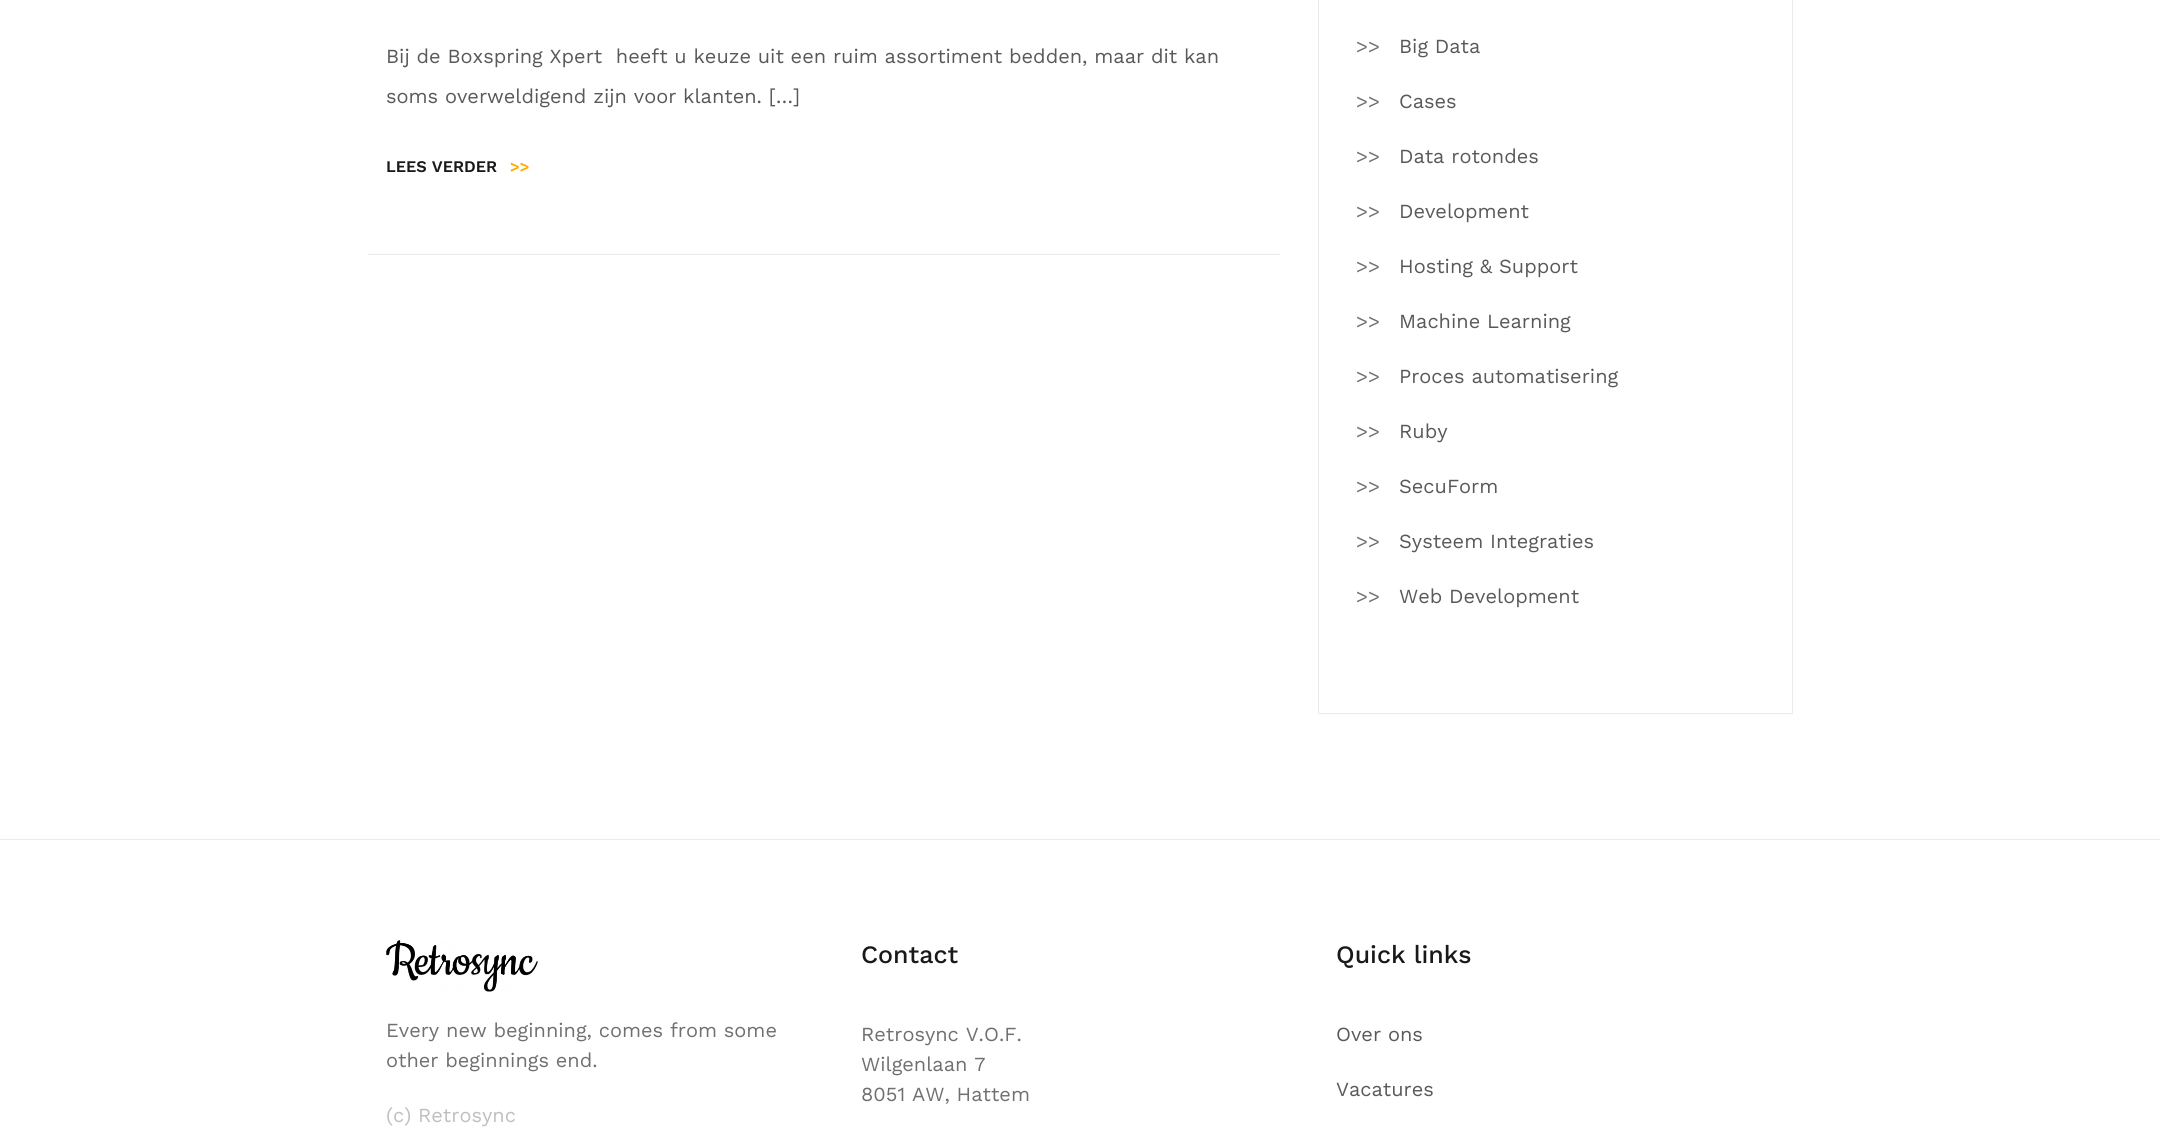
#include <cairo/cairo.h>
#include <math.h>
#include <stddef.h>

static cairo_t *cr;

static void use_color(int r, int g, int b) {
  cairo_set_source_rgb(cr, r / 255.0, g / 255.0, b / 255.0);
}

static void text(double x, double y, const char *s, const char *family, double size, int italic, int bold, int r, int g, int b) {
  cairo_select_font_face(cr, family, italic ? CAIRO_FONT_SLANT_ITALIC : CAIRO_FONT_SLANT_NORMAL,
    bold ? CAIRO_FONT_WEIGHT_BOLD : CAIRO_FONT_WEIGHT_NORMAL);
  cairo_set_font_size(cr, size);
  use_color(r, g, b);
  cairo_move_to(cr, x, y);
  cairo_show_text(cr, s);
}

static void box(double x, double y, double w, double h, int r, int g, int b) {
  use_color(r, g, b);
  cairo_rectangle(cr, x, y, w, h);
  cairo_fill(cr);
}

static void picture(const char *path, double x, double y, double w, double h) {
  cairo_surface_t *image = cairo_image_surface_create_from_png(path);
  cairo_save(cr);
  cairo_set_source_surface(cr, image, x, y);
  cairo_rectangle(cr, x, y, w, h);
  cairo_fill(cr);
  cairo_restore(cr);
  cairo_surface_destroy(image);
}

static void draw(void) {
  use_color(255, 255, 255);
  cairo_paint(cr);
  box(368, 254, 912, 1, 235, 235, 235);
  cairo_rectangle(cr, 1318.5, -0.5, 474, 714);
  cairo_set_line_width(cr, 1);
  cairo_stroke(cr);
  box(0, 839, 2160, 1, 235, 235, 235);
  picture("img_01.png", 386, 940, 152, 52);
  text(386, 63, "Bij de Boxspring Xpert  heeft u keuze uit een ruim assortiment bedden, maar dit kan", "Work Sans", 20, 0, 0, 89, 89, 89);
  text(386, 103, "soms overweldigend zijn voor klanten. […]", "Work Sans", 20, 0, 0, 89, 89, 89);
  text(386, 172, "LEES VERDER", "Work Sans SemiBold", 16.25, 0, 0, 25, 25, 25);
  text(510, 172, ">>", "Work Sans SemiBold", 16.25, 0, 0, 255, 171, 0);
  text(1356, 53, ">>", "Work Sans", 20, 0, 0, 112, 112, 112);
  text(1399, 53, "Big Data", "Work Sans", 20, 0, 0, 89, 89, 89);
  text(1356, 108, ">>", "Work Sans", 20, 0, 0, 112, 112, 112);
  text(1399, 108, "Cases", "Work Sans", 20, 0, 0, 89, 89, 89);
  text(1356, 163, ">>", "Work Sans", 20, 0, 0, 112, 112, 112);
  text(1399, 163, "Data rotondes", "Work Sans", 20, 0, 0, 89, 89, 89);
  text(1356, 218, ">>", "Work Sans", 20, 0, 0, 112, 112, 112);
  text(1399, 218, "Development", "Work Sans", 20, 0, 0, 89, 89, 89);
  text(1356, 273, ">>", "Work Sans", 20, 0, 0, 112, 112, 112);
  text(1399, 273, "Hosting & Support", "Work Sans", 20, 0, 0, 89, 89, 89);
  text(1356, 328, ">>", "Work Sans", 20, 0, 0, 112, 112, 112);
  text(1399, 328, "Machine Learning", "Work Sans", 20, 0, 0, 89, 89, 89);
  text(1356, 383, ">>", "Work Sans", 20, 0, 0, 112, 112, 112);
  text(1399, 383, "Proces automatisering", "Work Sans", 20, 0, 0, 89, 89, 89);
  text(1356, 438, ">>", "Work Sans", 20, 0, 0, 112, 112, 112);
  text(1399, 438, "Ruby", "Work Sans", 20, 0, 0, 89, 89, 89);
  text(1356, 493, ">>", "Work Sans", 20, 0, 0, 112, 112, 112);
  text(1399, 493, "SecuForm", "Work Sans", 20, 0, 0, 89, 89, 89);
  text(1356, 548, ">>", "Work Sans", 20, 0, 0, 112, 112, 112);
  text(1399, 548, "Systeem Integraties", "Work Sans", 20, 0, 0, 89, 89, 89);
  text(1356, 603, ">>", "Work Sans", 20, 0, 0, 112, 112, 112);
  text(1399, 603, "Web Development", "Work Sans", 20, 0, 0, 89, 89, 89);
  text(386, 1037, "Every new beginning, comes from some", "Work Sans", 20, 0, 0, 112, 112, 112);
  text(386, 1067, "other beginnings end.", "Work Sans", 20, 0, 0, 112, 112, 112);
  text(386, 1122, "(c) Retrosync", "Work Sans", 20, 0, 0, 191, 191, 191);
  text(861, 963, "Contact", "Work Sans Medium", 25, 0, 0, 25, 25, 25);
  text(861, 1041, "Retrosync V.O.F.", "Work Sans", 20, 0, 0, 112, 112, 112);
  text(861, 1071, "Wilgenlaan 7", "Work Sans", 20, 0, 0, 112, 112, 112);
  text(861, 1101, "8051 AW, Hattem", "Work Sans", 20, 0, 0, 112, 112, 112);
  text(1336, 963, "Quick links", "Work Sans Medium", 25, 0, 0, 25, 25, 25);
  text(1336, 1041, "Over ons", "Work Sans", 20, 0, 0, 89, 89, 89);
  text(1336, 1096, "Vacatures", "Work Sans", 20, 0, 0, 89, 89, 89);
}

int main(void) {
  cairo_surface_t *surface = cairo_image_surface_create(CAIRO_FORMAT_RGB24, 2160, 1138);
  cr = cairo_create(surface);
  cairo_font_options_t *options = cairo_font_options_create();
  cairo_font_options_set_hint_metrics(options, CAIRO_HINT_METRICS_OFF);
  cairo_font_options_set_hint_style(options, CAIRO_HINT_STYLE_NONE);
  cairo_set_font_options(cr, options);
  cairo_set_miter_limit(cr, 4);
  draw();
  cairo_surface_write_to_png(surface, "out.png");
  cairo_font_options_destroy(options);
  cairo_destroy(cr);
  cairo_surface_destroy(surface);
  return 0;
}
